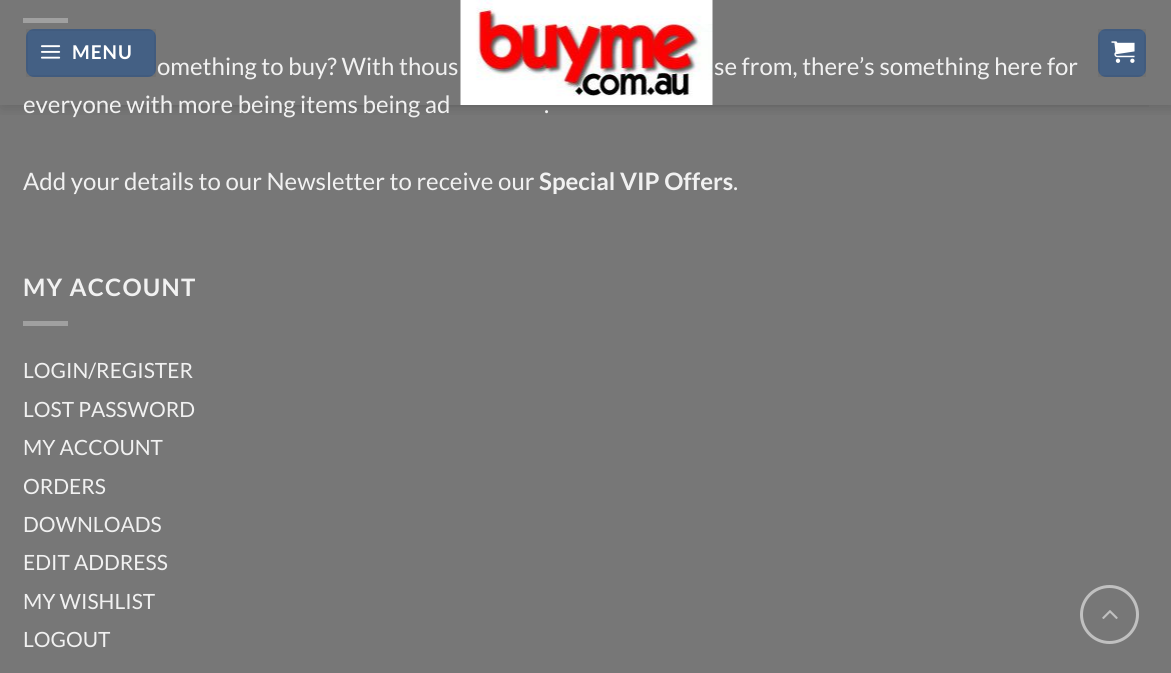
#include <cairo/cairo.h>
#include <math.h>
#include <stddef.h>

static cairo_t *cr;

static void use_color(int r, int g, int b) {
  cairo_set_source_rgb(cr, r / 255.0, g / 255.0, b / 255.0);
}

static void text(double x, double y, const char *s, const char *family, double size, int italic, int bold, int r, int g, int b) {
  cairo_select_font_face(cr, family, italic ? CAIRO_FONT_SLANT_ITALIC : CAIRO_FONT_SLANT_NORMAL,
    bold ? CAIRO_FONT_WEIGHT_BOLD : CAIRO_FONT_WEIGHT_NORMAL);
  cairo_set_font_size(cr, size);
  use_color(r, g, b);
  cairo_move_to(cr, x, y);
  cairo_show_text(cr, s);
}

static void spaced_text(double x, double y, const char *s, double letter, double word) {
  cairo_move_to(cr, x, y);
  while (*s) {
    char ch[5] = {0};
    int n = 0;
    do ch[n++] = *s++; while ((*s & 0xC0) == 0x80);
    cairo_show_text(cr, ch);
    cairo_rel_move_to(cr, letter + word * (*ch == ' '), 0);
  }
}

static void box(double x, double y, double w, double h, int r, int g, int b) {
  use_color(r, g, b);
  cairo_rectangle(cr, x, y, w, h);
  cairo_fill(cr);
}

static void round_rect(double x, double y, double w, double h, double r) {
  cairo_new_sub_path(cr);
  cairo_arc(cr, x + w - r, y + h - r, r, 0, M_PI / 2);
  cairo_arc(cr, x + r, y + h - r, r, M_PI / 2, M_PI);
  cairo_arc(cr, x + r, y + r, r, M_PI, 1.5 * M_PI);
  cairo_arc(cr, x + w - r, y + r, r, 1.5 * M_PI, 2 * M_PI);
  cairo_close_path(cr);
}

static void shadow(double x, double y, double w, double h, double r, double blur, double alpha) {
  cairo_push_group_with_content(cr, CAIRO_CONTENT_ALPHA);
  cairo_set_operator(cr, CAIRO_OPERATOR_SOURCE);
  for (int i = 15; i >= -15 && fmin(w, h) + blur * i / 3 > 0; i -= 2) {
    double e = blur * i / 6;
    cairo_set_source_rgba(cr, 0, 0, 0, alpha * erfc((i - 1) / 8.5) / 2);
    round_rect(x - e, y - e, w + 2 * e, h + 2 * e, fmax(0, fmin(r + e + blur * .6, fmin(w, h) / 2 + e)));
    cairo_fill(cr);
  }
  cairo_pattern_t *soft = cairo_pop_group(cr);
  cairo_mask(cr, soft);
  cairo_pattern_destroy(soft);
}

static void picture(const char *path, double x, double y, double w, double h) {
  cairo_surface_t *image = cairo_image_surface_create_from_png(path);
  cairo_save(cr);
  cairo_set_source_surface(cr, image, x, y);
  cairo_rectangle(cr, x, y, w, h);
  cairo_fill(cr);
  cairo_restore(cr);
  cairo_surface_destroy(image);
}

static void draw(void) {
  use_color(119, 119, 119);
  cairo_paint(cr);
  box(23, 18, 45, 5, 160, 160, 160);
  cairo_save(cr);
  cairo_rectangle(cr, 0, 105, 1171, 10);
  cairo_clip(cr);
  use_color(0, 0, 0);
  shadow(2, 2, 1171, 105, 0, 7.5, 0.15);
  cairo_restore(cr);
  use_color(68, 96, 132);
  round_rect(26, 29, 130, 48, 8);
  cairo_fill(cr);
  cairo_rectangle(cr, 27, 30, 128, 46);
  cairo_set_source_rgba(cr, 0, 0, 0, 0.05);
  cairo_stroke(cr);
  picture("img_01.png", 40, 45, 21, 14);
  picture("img_02.png", 460, 0, 253, 105);
  use_color(68, 96, 132);
  round_rect(1098, 29, 48, 48, 8);
  cairo_fill(cr);
  cairo_rectangle(cr, 1099, 30, 46, 46);
  cairo_set_source_rgba(cr, 0, 0, 0, 0.05);
  cairo_stroke(cr);
  picture("img_03.png", 1111, 41, 24, 22);
  cairo_set_source_rgba(cr, 0.29, 0.29, 0.29, 0.1);
  cairo_rectangle(cr, 23, 105, 1126, 2);
  cairo_fill(cr);
  box(23, 321, 45, 5, 160, 160, 160);
  cairo_arc(cr, 1109.5, 614.5, 28, 0, 2 * M_PI);
  use_color(192, 192, 192);
  cairo_set_line_width(cr, 3);
  cairo_stroke(cr);
  picture("img_04.png", 1102, 610, 16, 9);
  cairo_select_font_face(cr, "Lato", CAIRO_FONT_SLANT_NORMAL, CAIRO_FONT_WEIGHT_BOLD);
  cairo_set_font_size(cr, 19);
  use_color(255, 255, 255);
  spaced_text(72, 59, "MENU", 1, 0);
  text(157, 75, "omething to buy? With thous", "Lato", 24, 0, 0, 241, 241, 241);
  text(714, 75, "se from, there’s something here for", "Lato", 24, 0, 0, 241, 241, 241);
  text(23, 113, "everyone with more being items being ad", "Lato", 24, 0, 0, 241, 241, 241);
  text(544, 113, ".", "Lato", 24, 0, 0, 241, 241, 241);
  text(23, 190, "Add your details to our Newsletter to receive our", "Lato", 24, 0, 0, 241, 241, 241);
  text(539, 190, "Special VIP Offers", "Lato", 24, 0, 1, 241, 241, 241);
  text(733, 190, ".", "Lato", 24, 0, 0, 241, 241, 241);
  cairo_select_font_face(cr, "Lato", CAIRO_FONT_SLANT_NORMAL, CAIRO_FONT_WEIGHT_BOLD);
  spaced_text(23, 296, "MY ACCOUNT", 1.25, 0);
  text(23, 378, "LOGIN/REGISTER", "Lato", 21, 0, 0, 241, 241, 241);
  text(23, 417, "LOST PASSWORD", "Lato", 21, 0, 0, 241, 241, 241);
  text(23, 455, "MY ACCOUNT", "Lato", 21, 0, 0, 241, 241, 241);
  text(23, 494, "ORDERS", "Lato", 21, 0, 0, 241, 241, 241);
  text(23, 532, "DOWNLOADS", "Lato", 21, 0, 0, 241, 241, 241);
  text(23, 570, "EDIT ADDRESS", "Lato", 21, 0, 0, 241, 241, 241);
  text(23, 609, "MY WISHLIST", "Lato", 21, 0, 0, 241, 241, 241);
  text(23, 647, "LOGOUT", "Lato", 21, 0, 0, 241, 241, 241);
}

int main(void) {
  cairo_surface_t *surface = cairo_image_surface_create(CAIRO_FORMAT_RGB24, 1171, 673);
  cr = cairo_create(surface);
  cairo_font_options_t *options = cairo_font_options_create();
  cairo_font_options_set_hint_metrics(options, CAIRO_HINT_METRICS_OFF);
  cairo_font_options_set_hint_style(options, CAIRO_HINT_STYLE_NONE);
  cairo_set_font_options(cr, options);
  cairo_set_miter_limit(cr, 4);
  draw();
  cairo_surface_write_to_png(surface, "out.png");
  cairo_font_options_destroy(options);
  cairo_destroy(cr);
  cairo_surface_destroy(surface);
  return 0;
}
